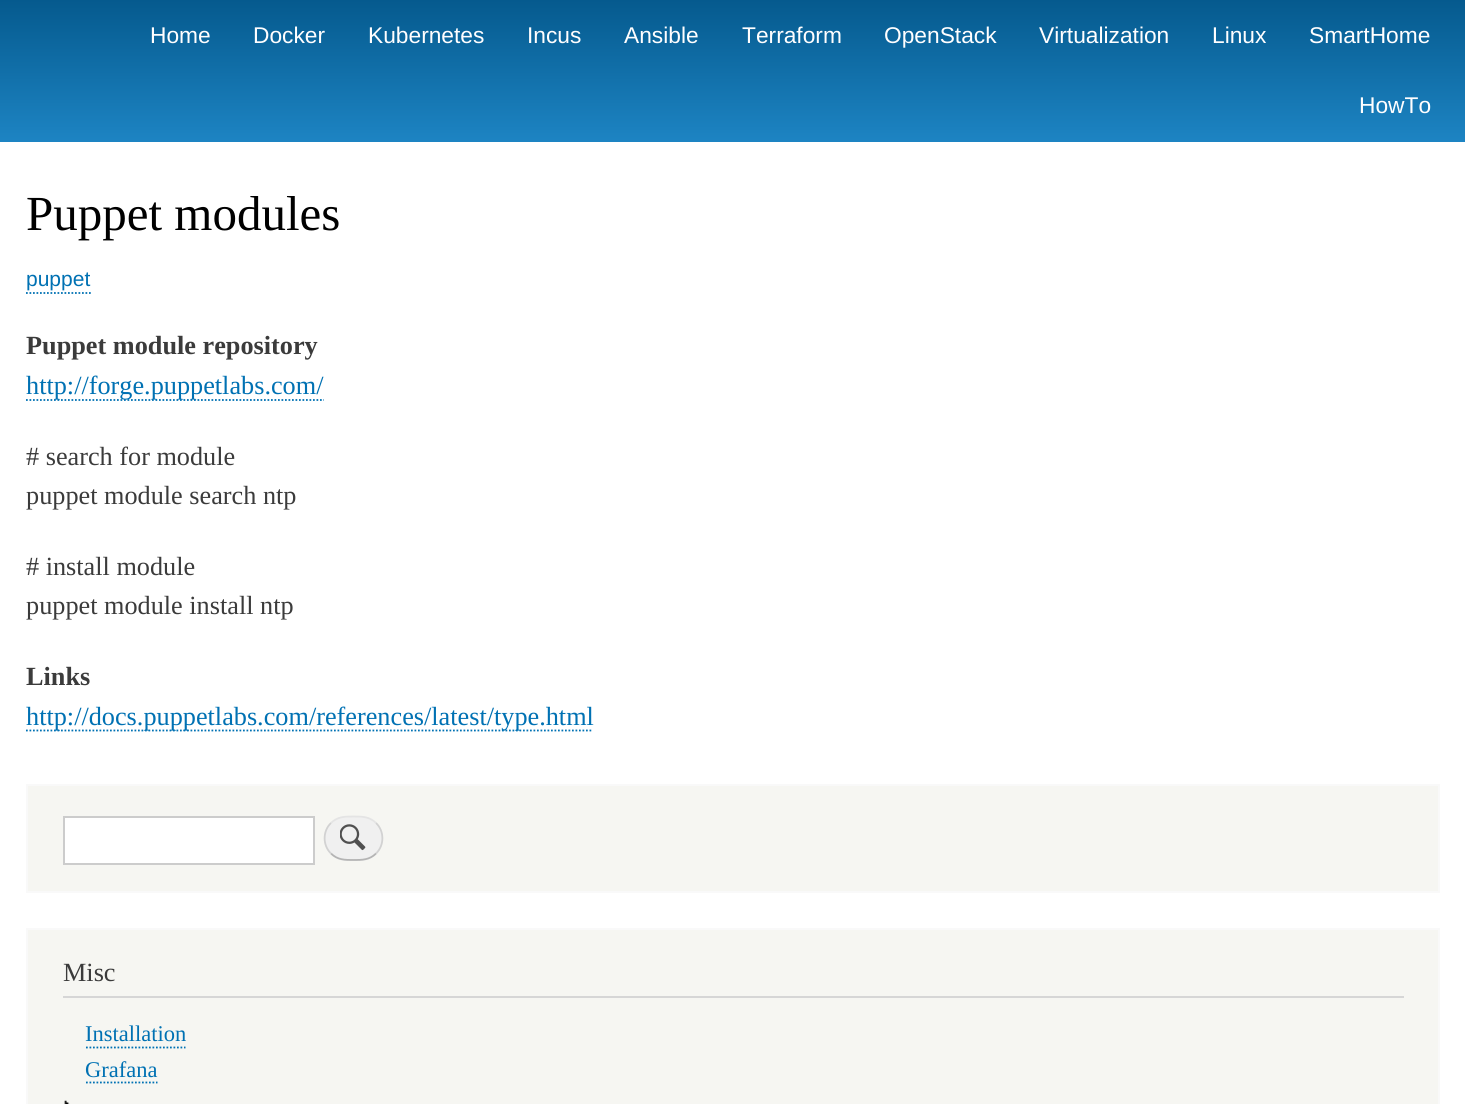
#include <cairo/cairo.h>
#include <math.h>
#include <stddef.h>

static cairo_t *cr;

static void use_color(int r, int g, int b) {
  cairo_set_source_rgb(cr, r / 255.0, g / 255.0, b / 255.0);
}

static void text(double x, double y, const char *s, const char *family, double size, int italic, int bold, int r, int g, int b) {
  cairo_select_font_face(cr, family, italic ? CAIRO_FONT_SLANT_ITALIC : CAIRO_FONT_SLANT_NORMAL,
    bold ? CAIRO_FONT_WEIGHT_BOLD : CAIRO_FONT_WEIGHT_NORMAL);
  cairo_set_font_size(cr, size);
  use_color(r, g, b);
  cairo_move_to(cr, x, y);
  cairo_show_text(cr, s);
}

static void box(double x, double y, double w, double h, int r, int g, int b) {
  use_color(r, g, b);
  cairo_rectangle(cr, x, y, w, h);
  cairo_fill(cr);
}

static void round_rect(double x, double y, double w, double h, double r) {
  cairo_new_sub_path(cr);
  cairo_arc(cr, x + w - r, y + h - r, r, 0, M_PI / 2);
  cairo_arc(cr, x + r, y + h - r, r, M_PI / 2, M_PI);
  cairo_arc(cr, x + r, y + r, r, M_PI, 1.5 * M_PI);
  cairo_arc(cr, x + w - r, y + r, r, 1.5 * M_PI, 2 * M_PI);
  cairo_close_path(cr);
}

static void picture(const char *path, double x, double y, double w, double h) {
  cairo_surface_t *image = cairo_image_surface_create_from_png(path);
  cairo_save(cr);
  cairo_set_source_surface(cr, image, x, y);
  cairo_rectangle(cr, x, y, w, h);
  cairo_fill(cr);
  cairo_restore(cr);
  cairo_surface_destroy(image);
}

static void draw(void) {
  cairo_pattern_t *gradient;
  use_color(255, 255, 255);
  cairo_paint(cr);
  gradient = cairo_pattern_create_linear(733, 0, 733, 142);
  cairo_pattern_add_color_stop_rgba(gradient, 0, 0.02, 0.353, 0.557, 1);
  cairo_pattern_add_color_stop_rgba(gradient, 1, 0.114, 0.518, 0.765, 1);
  cairo_set_source(cr, gradient);
  cairo_pattern_destroy(gradient);
  cairo_rectangle(cr, 0, 0, 1465, 142);
  cairo_fill(cr);
  cairo_new_path(cr);
  cairo_move_to(cr, 26, 293);
  cairo_line_to(cr, 91, 293);
  use_color(0, 113, 179);
  cairo_set_line_width(cr, 1.8);
  cairo_set_dash(cr, (double[]){1.75, 1.75}, 2, 0);
  cairo_stroke(cr);
  cairo_new_path(cr);
  cairo_move_to(cr, 26, 400);
  cairo_line_to(cr, 324, 400);
  cairo_stroke(cr);
  cairo_new_path(cr);
  cairo_move_to(cr, 26, 730.5);
  cairo_line_to(cr, 593, 730.5);
  cairo_stroke(cr);
  use_color(246, 246, 242);
  cairo_rectangle(cr, 27, 785, 1412, 107);
  cairo_fill_preserve(cr);
  use_color(249, 249, 249);
  cairo_set_line_width(cr, 2);
  cairo_set_dash(cr, NULL, 0, 0);
  cairo_stroke(cr);
  use_color(255, 255, 255);
  cairo_rectangle(cr, 64, 817, 250, 47);
  cairo_fill_preserve(cr);
  use_color(204, 204, 204);
  cairo_stroke(cr);
  use_color(240, 240, 240);
  round_rect(324, 816, 59, 45, 22.5);
  cairo_fill(cr);
  picture("img_01.png", 340, 824, 26, 27);
  cairo_new_path(cr);
  cairo_move_to(cr, 331, 823);
  cairo_curve_to(cr, 337.5, 816.5, 345, 816.5, 353.5, 816.5);
  cairo_curve_to(cr, 362, 816.5, 369.5, 816.5, 376, 823);
  use_color(228, 228, 228);
  cairo_set_line_width(cr, 1.8);
  cairo_stroke(cr);
  cairo_new_path(cr);
  cairo_move_to(cr, 376, 823);
  cairo_curve_to(cr, 384.5, 831, 384.5, 845.5, 376, 853.5);
  use_color(210, 210, 210);
  cairo_stroke(cr);
  cairo_new_path(cr);
  cairo_move_to(cr, 376, 853.5);
  cairo_curve_to(cr, 369.5, 860, 362, 860, 353.5, 860);
  cairo_curve_to(cr, 345, 860, 337.5, 860, 331, 853.5);
  use_color(180, 180, 180);
  cairo_stroke(cr);
  cairo_new_path(cr);
  cairo_move_to(cr, 331, 853.5);
  cairo_curve_to(cr, 322.5, 845.5, 322.5, 831, 331, 823);
  use_color(210, 210, 210);
  cairo_stroke(cr);
  use_color(246, 246, 242);
  cairo_rectangle(cr, 27, 929, 1412, 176);
  cairo_fill_preserve(cr);
  use_color(249, 249, 249);
  cairo_set_line_width(cr, 2);
  cairo_stroke(cr);
  box(63, 996, 1341, 2, 214, 214, 214);
  cairo_new_path(cr);
  cairo_move_to(cr, 86, 1047.5);
  cairo_line_to(cr, 185.5, 1047.5);
  use_color(0, 113, 179);
  cairo_set_line_width(cr, 1.8);
  cairo_set_dash(cr, (double[]){1.75, 1.75}, 2, 0);
  cairo_stroke(cr);
  cairo_new_path(cr);
  cairo_move_to(cr, 86, 1082.5);
  cairo_line_to(cr, 157.5, 1082.5);
  cairo_stroke(cr);
  picture("img_02.png", 64, 1100, 6, 4);
  text(150, 43, "Home", "Liberation Sans", 22.75, 0, 0, 255, 254, 255);
  text(253, 43, "Docker", "Liberation Sans", 22.75, 0, 0, 255, 254, 255);
  text(368, 43, "Kubernetes", "Liberation Sans", 22.75, 0, 0, 255, 254, 255);
  text(527, 43, "Incus", "Liberation Sans", 22.75, 0, 0, 255, 254, 255);
  text(624, 43, "Ansible", "Liberation Sans", 22.75, 0, 0, 255, 254, 255);
  text(742, 43, "Terraform", "Liberation Sans", 22.75, 0, 0, 255, 254, 255);
  text(884, 43, "OpenStack", "Liberation Sans", 22.75, 0, 0, 255, 254, 255);
  text(1039, 43, "Virtualization", "Liberation Sans", 22.75, 0, 0, 255, 254, 255);
  text(1212, 43, "Linux", "Liberation Sans", 22.75, 0, 0, 255, 254, 255);
  text(1309, 43, "SmartHome", "Liberation Sans", 22.75, 0, 0, 255, 254, 255);
  text(1359, 113, "HowTo", "Liberation Sans", 22.75, 0, 0, 255, 254, 255);
  text(26, 230, "Puppet modules", "Liberation Serif", 49, 0, 0, 0, 0, 0);
  text(26, 286, "puppet", "Liberation Sans", 21, 0, 0, 0, 113, 179);
  text(26, 354, "Puppet module repository", "Liberation Serif", 26.25, 0, 1, 59, 59, 59);
  text(26, 394, "http://forge.puppetlabs.com/", "Liberation Serif", 26.25, 0, 0, 0, 113, 179);
  text(26, 465, "# search for module", "Liberation Serif", 26.25, 0, 0, 59, 59, 59);
  text(26, 504, "puppet module search ntp", "Liberation Serif", 26.25, 0, 0, 59, 59, 59);
  text(26, 575, "# install module", "Liberation Serif", 26.25, 0, 0, 59, 59, 59);
  text(26, 614, "puppet module install ntp", "Liberation Serif", 26.25, 0, 0, 59, 59, 59);
  text(26, 685, "Links", "Liberation Serif", 26.25, 0, 1, 59, 59, 59);
  text(26, 725, "http://docs.puppetlabs.com/references/latest/type.html", "Liberation Serif", 26.25, 0, 0, 0, 113, 179);
  text(63, 981, "Misc", "Liberation Serif", 26.25, 0, 0, 59, 59, 59);
  text(85, 1041, "Installation", "Liberation Serif", 22.5, 0, 0, 0, 113, 179);
  text(85, 1077, "Grafana", "Liberation Serif", 22.5, 0, 0, 0, 113, 179);
}

int main(void) {
  cairo_surface_t *surface = cairo_image_surface_create(CAIRO_FORMAT_RGB24, 1465, 1104);
  cr = cairo_create(surface);
  cairo_font_options_t *options = cairo_font_options_create();
  cairo_font_options_set_hint_metrics(options, CAIRO_HINT_METRICS_OFF);
  cairo_font_options_set_hint_style(options, CAIRO_HINT_STYLE_NONE);
  cairo_set_font_options(cr, options);
  cairo_set_miter_limit(cr, 4);
  draw();
  cairo_surface_write_to_png(surface, "out.png");
  cairo_font_options_destroy(options);
  cairo_destroy(cr);
  cairo_surface_destroy(surface);
  return 0;
}
